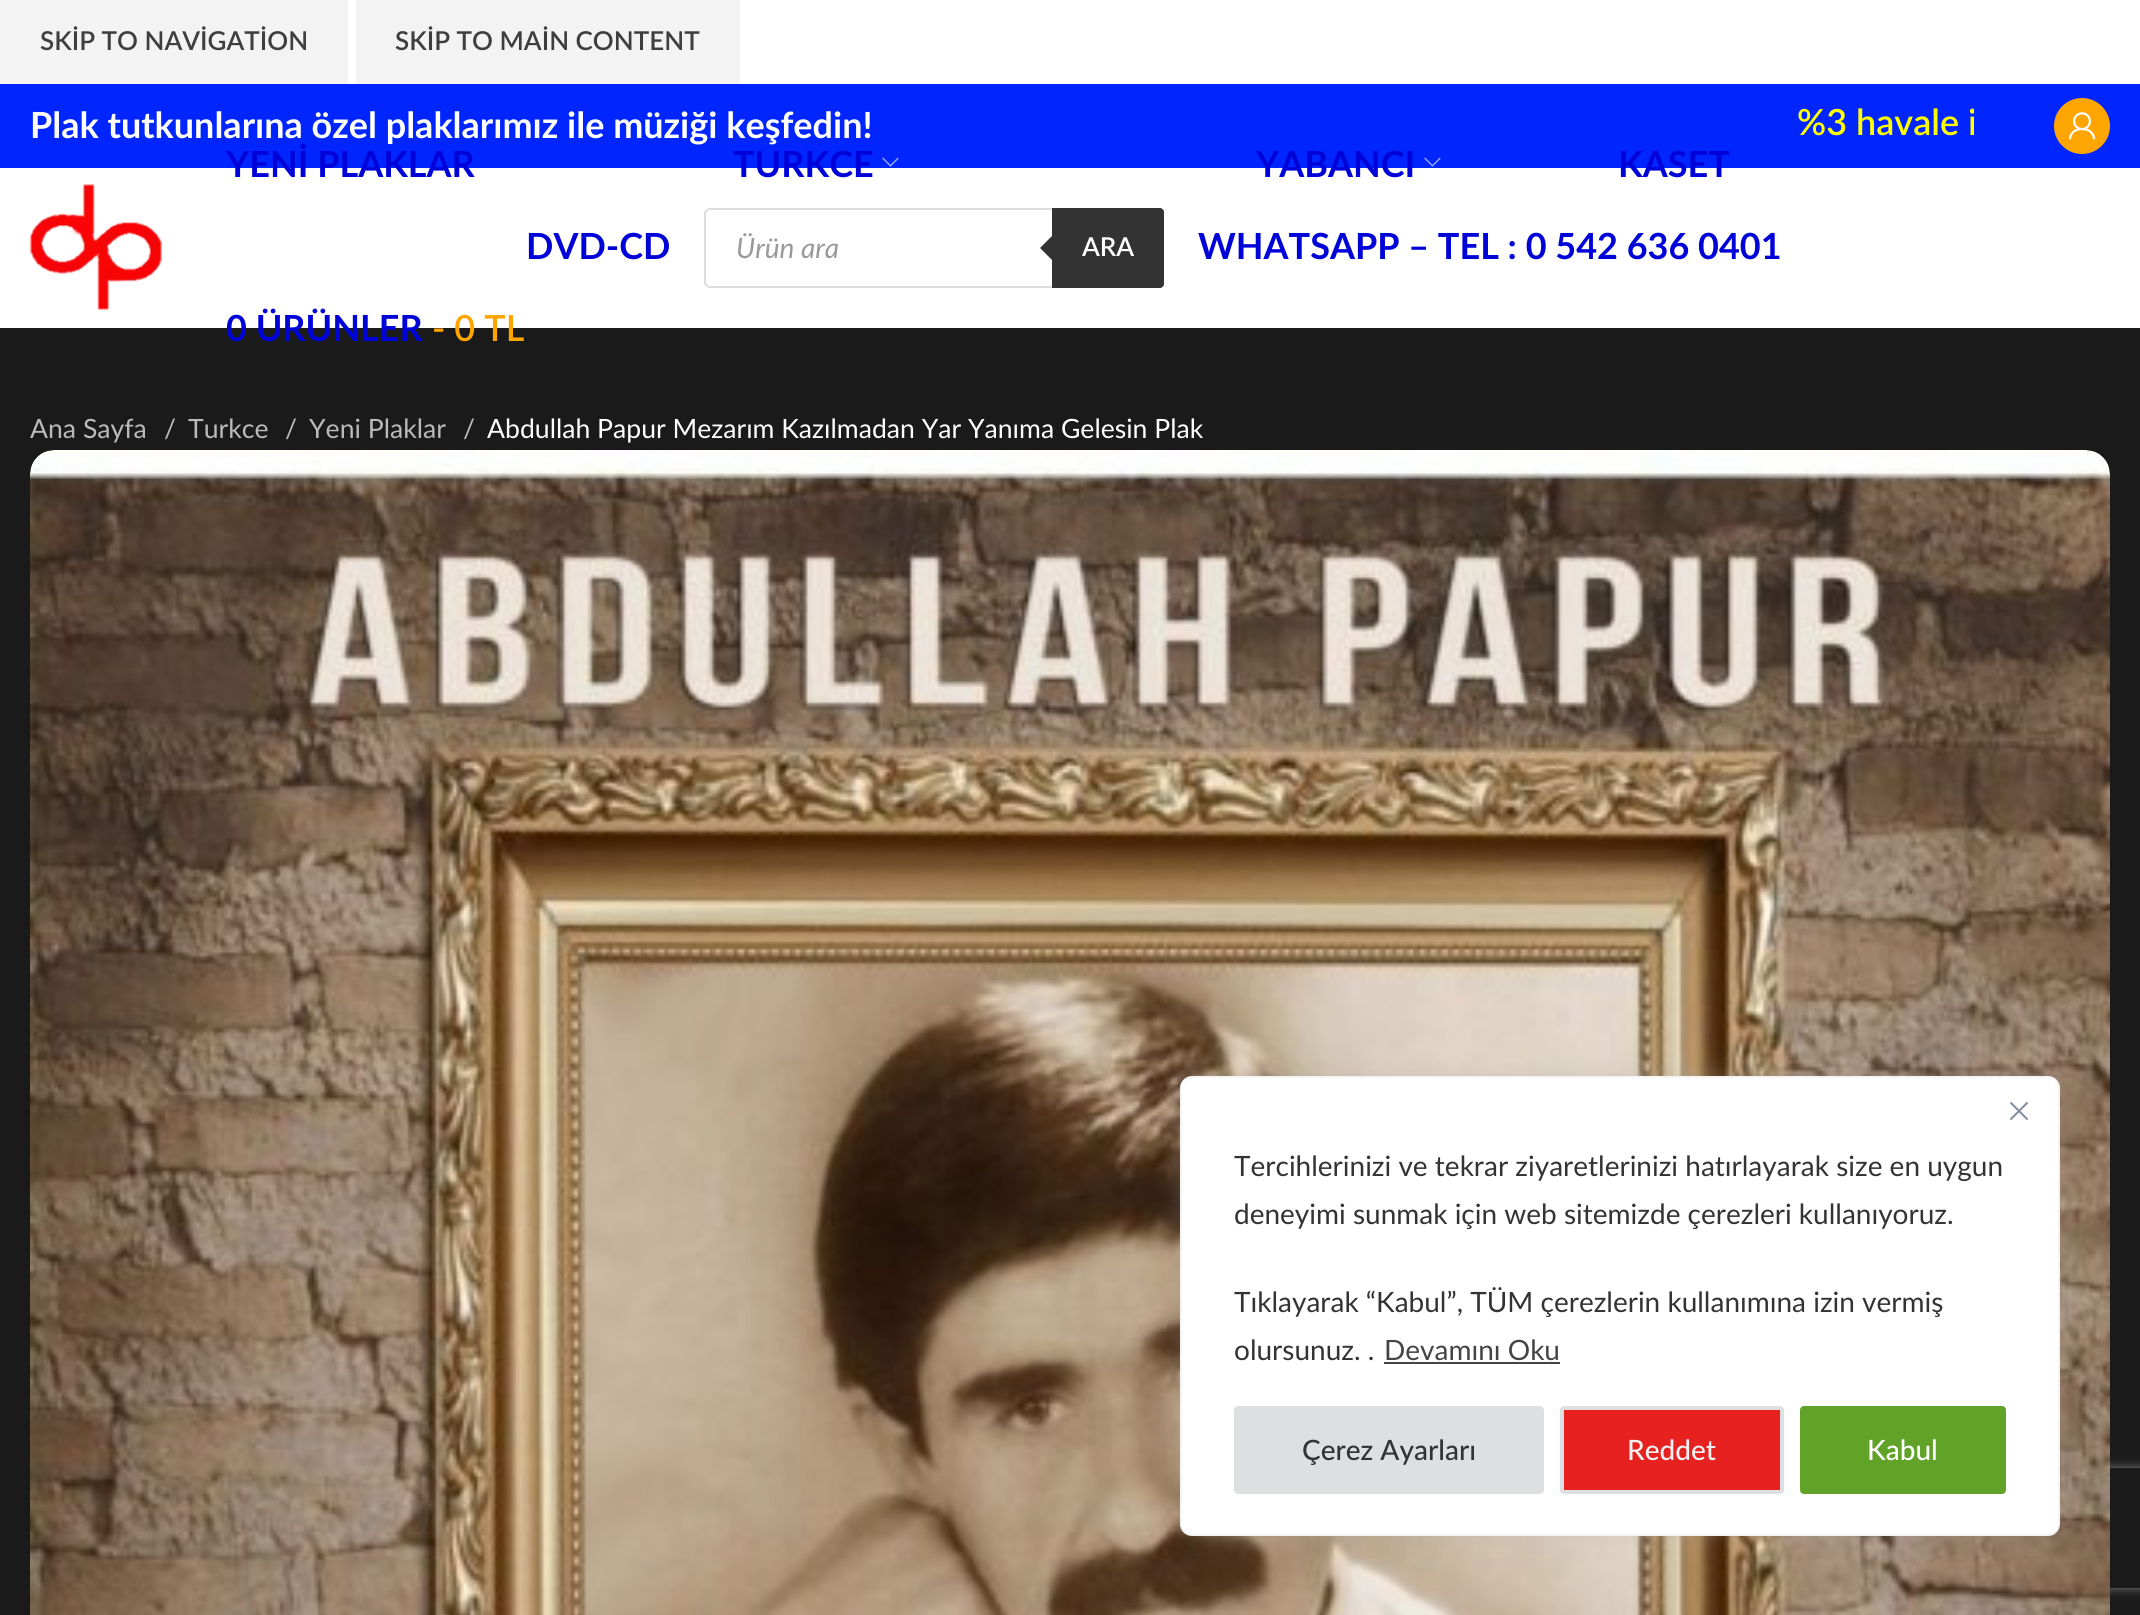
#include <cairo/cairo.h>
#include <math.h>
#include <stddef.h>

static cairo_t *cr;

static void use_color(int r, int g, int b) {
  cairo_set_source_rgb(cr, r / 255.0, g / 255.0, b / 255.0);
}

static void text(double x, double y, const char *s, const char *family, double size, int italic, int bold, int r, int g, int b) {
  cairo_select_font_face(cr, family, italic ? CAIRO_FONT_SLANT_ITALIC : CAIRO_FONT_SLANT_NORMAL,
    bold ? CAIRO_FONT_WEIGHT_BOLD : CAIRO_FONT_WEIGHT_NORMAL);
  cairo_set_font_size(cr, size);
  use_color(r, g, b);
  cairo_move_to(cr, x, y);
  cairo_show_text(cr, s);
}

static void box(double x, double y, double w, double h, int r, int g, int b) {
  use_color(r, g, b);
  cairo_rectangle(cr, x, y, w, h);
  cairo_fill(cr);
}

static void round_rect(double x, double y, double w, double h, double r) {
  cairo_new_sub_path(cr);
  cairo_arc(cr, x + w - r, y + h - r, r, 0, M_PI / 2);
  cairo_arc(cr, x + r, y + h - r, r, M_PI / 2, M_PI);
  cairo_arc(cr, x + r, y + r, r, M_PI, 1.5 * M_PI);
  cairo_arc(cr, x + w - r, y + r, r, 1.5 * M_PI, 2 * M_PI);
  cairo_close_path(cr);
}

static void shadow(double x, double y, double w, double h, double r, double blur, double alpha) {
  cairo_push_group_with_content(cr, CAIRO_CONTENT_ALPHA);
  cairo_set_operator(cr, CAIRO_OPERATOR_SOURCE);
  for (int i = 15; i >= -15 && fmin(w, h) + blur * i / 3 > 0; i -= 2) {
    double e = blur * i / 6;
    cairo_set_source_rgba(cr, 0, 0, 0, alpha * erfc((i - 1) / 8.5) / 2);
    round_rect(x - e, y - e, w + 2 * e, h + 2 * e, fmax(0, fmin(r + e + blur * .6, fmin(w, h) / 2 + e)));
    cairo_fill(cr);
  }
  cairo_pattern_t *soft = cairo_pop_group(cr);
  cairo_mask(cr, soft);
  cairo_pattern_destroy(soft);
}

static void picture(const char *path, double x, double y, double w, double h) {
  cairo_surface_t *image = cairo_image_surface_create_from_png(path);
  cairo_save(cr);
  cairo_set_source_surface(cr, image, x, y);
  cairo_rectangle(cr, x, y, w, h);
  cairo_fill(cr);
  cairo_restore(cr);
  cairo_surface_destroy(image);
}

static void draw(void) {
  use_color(255, 255, 255);
  cairo_paint(cr);
  box(0, 0, 348, 84, 243, 243, 243);
  box(356, 0, 384, 84, 243, 243, 243);
  box(0, 328, 2140, 1287, 26, 26, 26);
  box(0, 84, 2140, 84, 0, 37, 255);
  use_color(255, 165, 0);
  cairo_arc(cr, 2082, 126, 28, 0, 2 * M_PI);
  cairo_fill(cr);
  picture("img_01.png", 2068, 112, 28, 28);
  picture("img_02.png", 30, 184, 132, 126);
  picture("img_03.png", 882, 157, 17, 10);
  picture("img_03.png", 1424, 157, 17, 10);
  round_rect(705, 209, 458, 78, 5);
  use_color(221, 221, 221);
  cairo_stroke(cr);
  use_color(51, 51, 51);
  cairo_new_path(cr);
  cairo_move_to(cr, 1052, 208);
  cairo_line_to(cr, 1160, 208);
  cairo_curve_to(cr, 1162, 208, 1164, 210, 1164, 212);
  cairo_line_to(cr, 1164, 284);
  cairo_curve_to(cr, 1164, 286, 1162, 288, 1160, 288);
  cairo_line_to(cr, 1052, 288);
  cairo_close_path(cr);
  cairo_fill(cr);
  cairo_new_path(cr);
  cairo_move_to(cr, 1056, 232);
  cairo_line_to(cr, 1056, 264);
  cairo_line_to(cr, 1040, 248);
  cairo_close_path(cr);
  cairo_fill(cr);
  cairo_save(cr);
  cairo_set_fill_rule(cr, CAIRO_FILL_RULE_EVEN_ODD);
  cairo_new_path(cr);
  cairo_move_to(cr, 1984, 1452);
  cairo_line_to(cr, 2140, 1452);
  cairo_line_to(cr, 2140, 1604);
  cairo_line_to(cr, 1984, 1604);
  cairo_close_path(cr);
  cairo_move_to(cr, 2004, 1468);
  cairo_line_to(cr, 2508, 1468);
  cairo_curve_to(cr, 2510, 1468, 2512, 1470, 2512, 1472);
  cairo_line_to(cr, 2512, 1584);
  cairo_curve_to(cr, 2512, 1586, 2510, 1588, 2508, 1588);
  cairo_line_to(cr, 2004, 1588);
  cairo_curve_to(cr, 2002, 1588, 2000, 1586, 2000, 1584);
  cairo_line_to(cr, 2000, 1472);
  cairo_curve_to(cr, 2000, 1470, 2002, 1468, 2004, 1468);
  cairo_close_path(cr);
  cairo_clip(cr);
  use_color(128, 128, 128);
  shadow(2000, 1468, 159, 120, 4, 5, 1);
  cairo_restore(cr);
  picture("img_04.png", 30, 450, 2080, 1165);
  use_color(172, 171, 171);
  shadow(1180, 1074, 880, 460, 12, 10, 0.3);
  use_color(255, 255, 255);
  round_rect(1181, 1077, 878, 458, 11);
  cairo_fill_preserve(cr);
  use_color(244, 244, 244);
  cairo_stroke(cr);
  picture("img_05.png", 2010, 1102, 18, 18);
  box(1384, 1362, 176, 2, 68, 68, 68);
  use_color(222, 223, 224);
  round_rect(1236, 1408, 306, 84, 2);
  cairo_fill_preserve(cr);
  cairo_set_line_width(cr, 4);
  cairo_stroke(cr);
  use_color(230, 33, 32);
  round_rect(1562, 1408, 220, 84, 2);
  cairo_fill_preserve(cr);
  use_color(222, 223, 224);
  cairo_stroke(cr);
  use_color(97, 162, 41);
  round_rect(1802, 1408, 202, 84, 2);
  cairo_fill_preserve(cr);
  cairo_stroke(cr);
  text(40, 50, "SKİP TO NAVİGATİON", "Lato SemiBold", 26, 0, 0, 62, 62, 62);
  text(395, 50, "SKİP TO MAİN CONTENT", "Lato SemiBold", 26, 0, 0, 62, 62, 62);
  text(30, 138, "Plak tutkunlarına özel plaklarımız ile müziği keşfedin!", "Lato", 36, 0, 1, 255, 255, 255);
  cairo_save(cr);
  cairo_rectangle(cr, 912, 102, 1062, 42);
  cairo_clip(cr);
  text(1797, 135, "%3 havale i", "Lato SemiBold", 36, 0, 0, 255, 255, 0);
  cairo_restore(cr);
  text(226, 177, "YENİ PLAKLAR", "Lato", 36, 0, 1, 0, 3, 216);
  text(733, 177, "TURKCE", "Lato", 36, 0, 1, 0, 3, 216);
  text(1256, 177, "YABANCI", "Lato", 36, 0, 1, 0, 3, 216);
  text(1618, 177, "KASET", "Lato", 36, 0, 1, 0, 3, 216);
  text(526, 259, "DVD-CD", "Lato", 36, 0, 1, 0, 3, 216);
  text(736, 258, "Ürün ara", "Lato", 28, 1, 0, 153, 153, 153);
  text(1082, 256, "ARA", "Lato SemiBold", 26, 0, 0, 255, 255, 255);
  text(1198, 259, "WHATSAPP – TEL : 0 542 636 0401", "Lato", 36, 0, 1, 0, 3, 216);
  text(226, 341, "0 ÜRÜNLER", "Lato", 36, 0, 1, 0, 3, 216);
  text(432, 341, "- 0 TL", "Lato SemiBold", 36, 0, 0, 255, 165, 0);
  text(30, 438, "Ana Sayfa", "Lato", 26.6, 0, 0, 186, 186, 186);
  text(164, 438, "/", "Lato", 26.6, 0, 0, 186, 186, 186);
  text(188, 438, "Turkce", "Lato", 26.6, 0, 0, 186, 186, 186);
  text(285, 438, "/", "Lato", 26.6, 0, 0, 186, 186, 186);
  text(309, 438, "Yeni Plaklar", "Lato", 26.6, 0, 0, 186, 186, 186);
  text(463, 438, "/", "Lato", 26.6, 0, 0, 186, 186, 186);
  text(487, 438, "Abdullah Papur Mezarım Kazılmadan Yar Yanıma Gelesin Plak", "Lato", 26.6, 0, 0, 255, 255, 255);
  text(1234, 1176, "Tercihlerinizi ve tekrar ziyaretlerinizi hatırlayarak size en uygun", "Lato", 28, 0, 0, 51, 51, 51);
  text(1234, 1224, "deneyimi sunmak için web sitemizde çerezleri kullanıyoruz.", "Lato", 28, 0, 0, 51, 51, 51);
  text(1234, 1312, "Tıklayarak “Kabul”, TÜM çerezlerin kullanımına izin vermiş", "Lato", 28, 0, 0, 51, 51, 51);
  text(1234, 1360, "olursunuz. .", "Lato", 28, 0, 0, 51, 51, 51);
  text(1384, 1360, "Devamını Oku", "Lato", 28, 0, 0, 68, 68, 68);
  text(1302, 1460, "Çerez Ayarları", "Lato Medium", 28, 0, 0, 51, 51, 51);
  text(1627, 1460, "Reddet", "Lato Medium", 28, 0, 0, 243, 242, 242);
  text(1867, 1460, "Kabul", "Lato Medium", 28, 0, 0, 255, 255, 255);
}

int main(void) {
  cairo_surface_t *surface = cairo_image_surface_create(CAIRO_FORMAT_RGB24, 2140, 1615);
  cr = cairo_create(surface);
  cairo_font_options_t *options = cairo_font_options_create();
  cairo_font_options_set_hint_metrics(options, CAIRO_HINT_METRICS_OFF);
  cairo_font_options_set_hint_style(options, CAIRO_HINT_STYLE_NONE);
  cairo_set_font_options(cr, options);
  cairo_set_miter_limit(cr, 4);
  draw();
  cairo_surface_write_to_png(surface, "out.png");
  cairo_font_options_destroy(options);
  cairo_destroy(cr);
  cairo_surface_destroy(surface);
  return 0;
}
